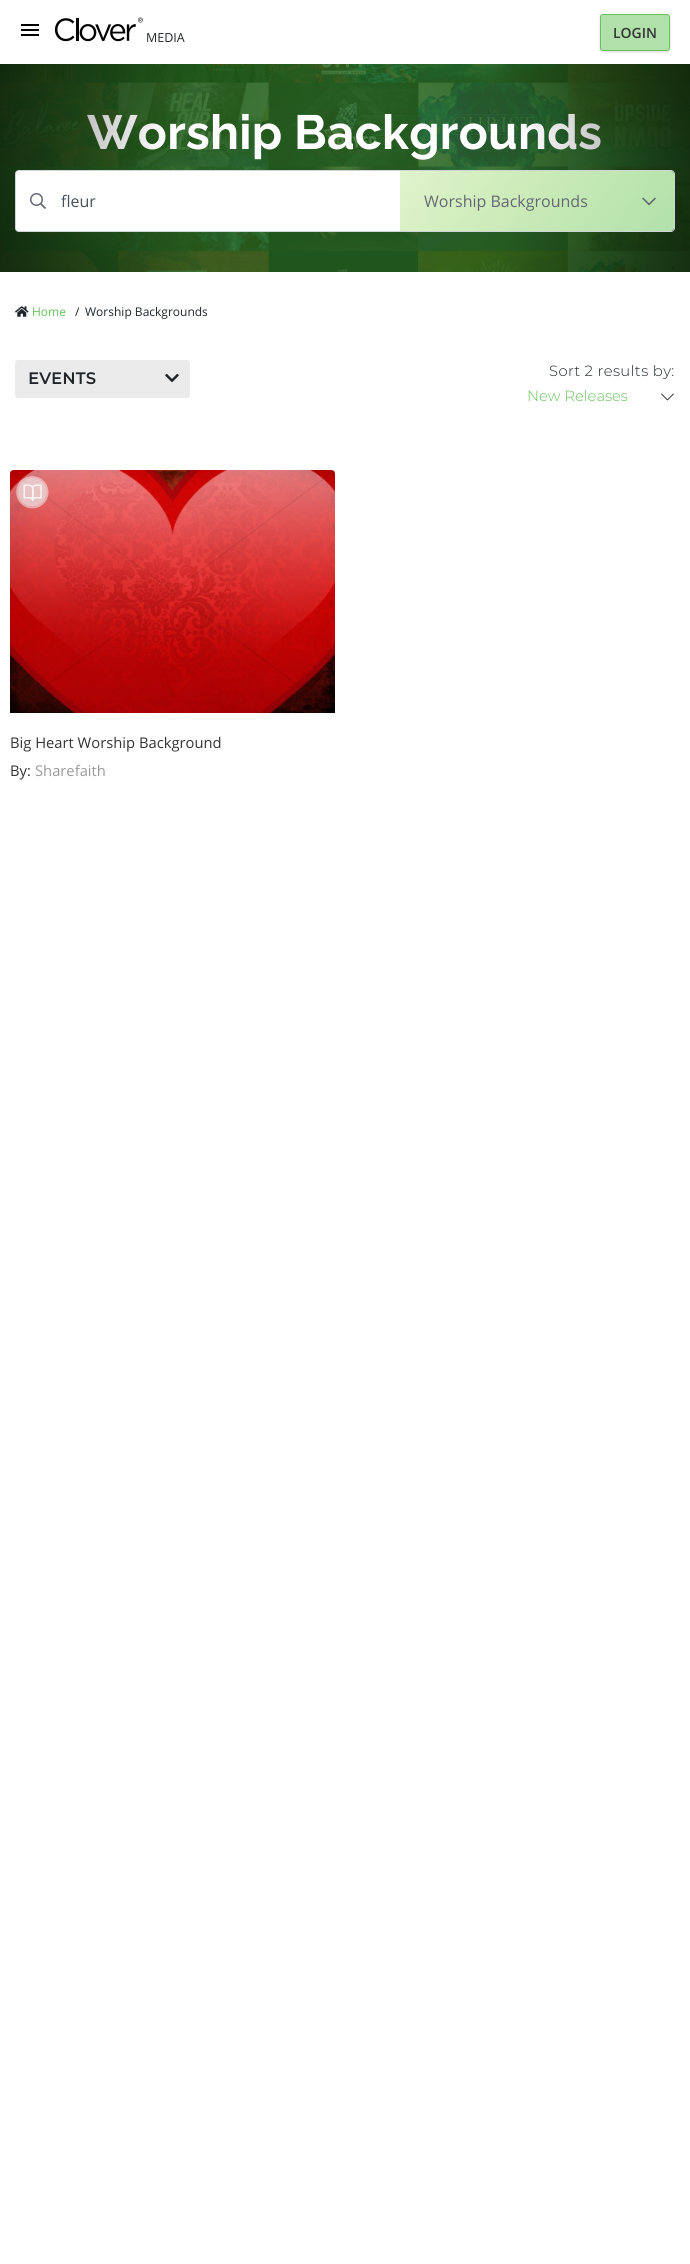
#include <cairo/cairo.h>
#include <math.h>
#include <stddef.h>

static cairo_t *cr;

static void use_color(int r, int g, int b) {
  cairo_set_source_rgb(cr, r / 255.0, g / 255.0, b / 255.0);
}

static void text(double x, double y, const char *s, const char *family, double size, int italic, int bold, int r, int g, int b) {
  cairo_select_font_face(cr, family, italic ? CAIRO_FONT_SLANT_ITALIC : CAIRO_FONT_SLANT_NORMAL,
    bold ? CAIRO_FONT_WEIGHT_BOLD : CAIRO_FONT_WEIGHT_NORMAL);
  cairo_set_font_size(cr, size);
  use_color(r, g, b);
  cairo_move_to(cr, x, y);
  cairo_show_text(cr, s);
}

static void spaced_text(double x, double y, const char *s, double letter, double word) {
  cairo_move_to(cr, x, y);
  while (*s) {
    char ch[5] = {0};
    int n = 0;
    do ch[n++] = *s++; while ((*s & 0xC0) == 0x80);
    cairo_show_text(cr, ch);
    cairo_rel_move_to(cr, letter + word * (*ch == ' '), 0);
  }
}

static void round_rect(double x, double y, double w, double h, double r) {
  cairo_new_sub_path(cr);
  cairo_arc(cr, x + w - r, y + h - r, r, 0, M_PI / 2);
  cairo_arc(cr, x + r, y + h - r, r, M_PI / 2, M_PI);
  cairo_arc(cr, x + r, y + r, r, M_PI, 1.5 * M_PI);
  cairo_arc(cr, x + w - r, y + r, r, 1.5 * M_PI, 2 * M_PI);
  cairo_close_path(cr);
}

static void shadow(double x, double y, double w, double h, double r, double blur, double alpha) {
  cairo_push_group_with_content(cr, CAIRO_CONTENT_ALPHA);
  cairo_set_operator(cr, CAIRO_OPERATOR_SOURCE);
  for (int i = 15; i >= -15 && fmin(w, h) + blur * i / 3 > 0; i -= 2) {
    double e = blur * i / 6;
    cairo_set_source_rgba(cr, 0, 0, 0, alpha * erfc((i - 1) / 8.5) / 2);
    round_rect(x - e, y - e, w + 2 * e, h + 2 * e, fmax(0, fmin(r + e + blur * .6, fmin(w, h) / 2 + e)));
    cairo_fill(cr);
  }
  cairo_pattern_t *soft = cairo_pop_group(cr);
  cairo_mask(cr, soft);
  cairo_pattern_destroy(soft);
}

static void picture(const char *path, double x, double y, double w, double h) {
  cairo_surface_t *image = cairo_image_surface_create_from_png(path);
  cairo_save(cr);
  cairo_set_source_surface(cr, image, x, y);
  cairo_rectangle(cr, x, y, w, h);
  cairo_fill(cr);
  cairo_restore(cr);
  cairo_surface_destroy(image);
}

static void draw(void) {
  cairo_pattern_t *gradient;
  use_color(255, 255, 255);
  cairo_paint(cr);
  picture("img_01.png", 21, 24, 18, 12);
  picture("img_02.png", 54, 17, 89, 25);
  cairo_save(cr);
  cairo_set_fill_rule(cr, CAIRO_FILL_RULE_EVEN_ODD);
  cairo_new_path(cr);
  cairo_move_to(cr, 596, 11);
  cairo_line_to(cr, 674, 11);
  cairo_line_to(cr, 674, 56);
  cairo_line_to(cr, 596, 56);
  cairo_close_path(cr);
  cairo_move_to(cr, 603, 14);
  cairo_line_to(cr, 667, 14);
  cairo_curve_to(cr, 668.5, 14, 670, 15.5, 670, 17);
  cairo_line_to(cr, 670, 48);
  cairo_curve_to(cr, 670, 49.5, 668.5, 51, 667, 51);
  cairo_line_to(cr, 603, 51);
  cairo_curve_to(cr, 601.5, 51, 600, 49.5, 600, 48);
  cairo_line_to(cr, 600, 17);
  cairo_curve_to(cr, 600, 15.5, 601.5, 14, 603, 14);
  cairo_close_path(cr);
  cairo_clip(cr);
  use_color(0, 0, 0);
  shadow(600, 15, 70, 37, 3, 1, 0.16);
  cairo_restore(cr);
  cairo_set_source_rgba(cr, 0.392, 0.765, 0.345, 0.5);
  round_rect(600.5, 14.5, 69, 36, 2.5);
  cairo_fill_preserve(cr);
  use_color(100, 195, 88);
  cairo_set_line_width(cr, 1);
  cairo_stroke(cr);
  picture("img_03.png", 0, 64, 690, 208);
  picture("img_06.png", 15, 306, 14, 11);
  use_color(235, 235, 235);
  round_rect(15, 360, 175, 38, 3);
  cairo_fill(cr);
  picture("img_07.png", 165, 373, 14, 10);
  picture("img_08.png", 661, 393, 13, 8);
  picture("img_10.png", 10, 470, 325, 243);
  picture("img_09.png", 16, 476, 33, 33);
  text(146, 42, "MEDIA", "Open Sans", 12.5, 0, 0, 33, 37, 41);
  text(613, 38, "LOGIN", "Open Sans SemiBold", 14, 0, 0, 52, 52, 52);
  cairo_select_font_face(cr, "Raleway", CAIRO_FONT_SLANT_NORMAL, CAIRO_FONT_WEIGHT_BOLD);
  cairo_set_font_size(cr, 48);
  use_color(255, 255, 255);
  spaced_text(87, 149, "Worship Backgrounds", 0.25, 0);
  gradient = cairo_pattern_create_radial(345, 168, 0, 345, 168, 541);
  cairo_pattern_add_color_stop_rgba(gradient, 0.33, 0, 0, 0, 0);
  cairo_pattern_add_color_stop_rgba(gradient, 1, 0, 0, 0, 1);
  cairo_set_source(cr, gradient);
  cairo_pattern_destroy(gradient);
  cairo_rectangle(cr, 0, 64, 690, 208);
  cairo_fill(cr);
  use_color(255, 255, 255);
  cairo_new_path(cr);
  cairo_move_to(cr, 19, 170.5);
  cairo_line_to(cr, 400.5, 170.5);
  cairo_line_to(cr, 400.5, 231.5);
  cairo_line_to(cr, 19, 231.5);
  cairo_curve_to(cr, 17, 231.5, 15.5, 230, 15.5, 228);
  cairo_line_to(cr, 15.5, 174);
  cairo_curve_to(cr, 15.5, 172, 17, 170.5, 19, 170.5);
  cairo_close_path(cr);
  cairo_fill_preserve(cr);
  use_color(206, 212, 218);
  cairo_stroke(cr);
  picture("img_04.png", 30, 193, 16, 16);
  text(61, 207, "fleur", "Open Sans", 16, 0, 0, 73, 80, 87);
  use_color(255, 255, 255);
  cairo_new_path(cr);
  cairo_move_to(cr, 400, 171);
  cairo_line_to(cr, 671, 171);
  cairo_curve_to(cr, 672.5, 171, 674, 172.5, 674, 174);
  cairo_line_to(cr, 674, 228);
  cairo_curve_to(cr, 674, 229.5, 672.5, 231, 671, 231);
  cairo_line_to(cr, 400, 231);
  cairo_close_path(cr);
  cairo_fill(cr);
  gradient = cairo_pattern_create_linear(435, 124, 639, 278);
  cairo_pattern_add_color_stop_rgba(gradient, 0, 0.392, 0.765, 0.031, 0.2);
  cairo_pattern_add_color_stop_rgba(gradient, 1, 0.392, 0.765, 0.345, 0.5);
  cairo_set_source(cr, gradient);
  cairo_pattern_destroy(gradient);
  cairo_new_path(cr);
  cairo_move_to(cr, 400, 171);
  cairo_line_to(cr, 671, 171);
  cairo_curve_to(cr, 672.5, 171, 674, 172.5, 674, 174);
  cairo_line_to(cr, 674, 228);
  cairo_curve_to(cr, 674, 229.5, 672.5, 231, 671, 231);
  cairo_line_to(cr, 400, 231);
  cairo_close_path(cr);
  cairo_fill(cr);
  use_color(206, 212, 218);
  cairo_set_fill_rule(cr, CAIRO_FILL_RULE_EVEN_ODD);
  cairo_new_path(cr);
  cairo_move_to(cr, 400, 170);
  cairo_line_to(cr, 671, 170);
  cairo_curve_to(cr, 673, 170, 675, 172, 675, 174);
  cairo_line_to(cr, 675, 228);
  cairo_curve_to(cr, 675, 230, 673, 232, 671, 232);
  cairo_line_to(cr, 400, 232);
  cairo_close_path(cr);
  cairo_move_to(cr, 400, 171);
  cairo_line_to(cr, 671, 171);
  cairo_curve_to(cr, 673, 171, 674, 172, 674, 174);
  cairo_line_to(cr, 674, 228);
  cairo_curve_to(cr, 674, 230, 673, 231, 671, 231);
  cairo_line_to(cr, 400, 231);
  cairo_close_path(cr);
  cairo_fill(cr);
  text(424, 207, "Worship Backgrounds", "Open Sans", 16, 0, 0, 101, 104, 116);
  picture("img_05.png", 642, 197, 14, 9);
  text(32, 316, "Home", "Open Sans", 12, 0, 0, 100, 195, 88);
  text(75, 316, "/", "Open Sans", 12, 0, 0, 33, 37, 41);
  text(85, 316, "Worship Backgrounds", "Open Sans", 12, 0, 0, 33, 37, 41);
  cairo_select_font_face(cr, "Montserrat", CAIRO_FONT_SLANT_NORMAL, CAIRO_FONT_WEIGHT_BOLD);
  cairo_set_font_size(cr, 16);
  spaced_text(28, 384, "EVENTS", 0.5, 0);
  cairo_select_font_face(cr, "Montserrat Light", CAIRO_FONT_SLANT_NORMAL, CAIRO_FONT_WEIGHT_NORMAL);
  cairo_set_font_size(cr, 14.75);
  spaced_text(549, 376, "Sort 2 results by:", 0.4, 0);
  text(527, 401, "New Releases", "Montserrat Light", 14.75, 0, 0, 100, 195, 88);
  text(10, 748, "Big Heart Worship Background", "Open Sans", 14.75, 0, 0, 52, 52, 52);
  text(10, 776, "By:", "Open Sans", 14.75, 0, 0, 52, 52, 52);
  text(35, 776, "Sharefaith", "Open Sans", 14.75, 0, 0, 154, 154, 154);
}

int main(void) {
  cairo_surface_t *surface = cairo_image_surface_create(CAIRO_FORMAT_RGB24, 690, 2264);
  cr = cairo_create(surface);
  cairo_font_options_t *options = cairo_font_options_create();
  cairo_font_options_set_hint_metrics(options, CAIRO_HINT_METRICS_OFF);
  cairo_font_options_set_hint_style(options, CAIRO_HINT_STYLE_NONE);
  cairo_set_font_options(cr, options);
  cairo_set_miter_limit(cr, 4);
  draw();
  cairo_surface_write_to_png(surface, "out.png");
  cairo_font_options_destroy(options);
  cairo_destroy(cr);
  cairo_surface_destroy(surface);
  return 0;
}
